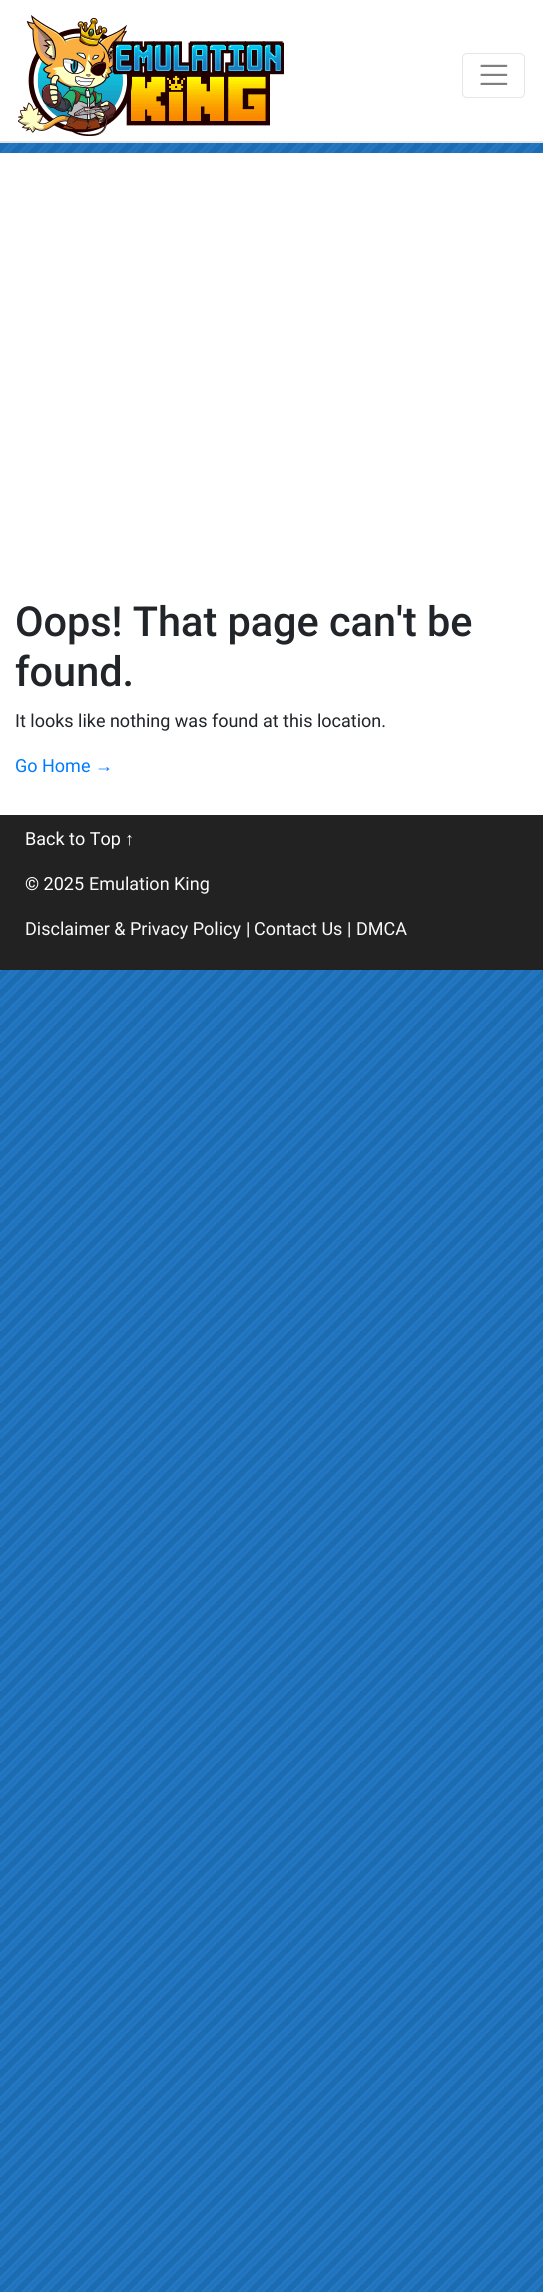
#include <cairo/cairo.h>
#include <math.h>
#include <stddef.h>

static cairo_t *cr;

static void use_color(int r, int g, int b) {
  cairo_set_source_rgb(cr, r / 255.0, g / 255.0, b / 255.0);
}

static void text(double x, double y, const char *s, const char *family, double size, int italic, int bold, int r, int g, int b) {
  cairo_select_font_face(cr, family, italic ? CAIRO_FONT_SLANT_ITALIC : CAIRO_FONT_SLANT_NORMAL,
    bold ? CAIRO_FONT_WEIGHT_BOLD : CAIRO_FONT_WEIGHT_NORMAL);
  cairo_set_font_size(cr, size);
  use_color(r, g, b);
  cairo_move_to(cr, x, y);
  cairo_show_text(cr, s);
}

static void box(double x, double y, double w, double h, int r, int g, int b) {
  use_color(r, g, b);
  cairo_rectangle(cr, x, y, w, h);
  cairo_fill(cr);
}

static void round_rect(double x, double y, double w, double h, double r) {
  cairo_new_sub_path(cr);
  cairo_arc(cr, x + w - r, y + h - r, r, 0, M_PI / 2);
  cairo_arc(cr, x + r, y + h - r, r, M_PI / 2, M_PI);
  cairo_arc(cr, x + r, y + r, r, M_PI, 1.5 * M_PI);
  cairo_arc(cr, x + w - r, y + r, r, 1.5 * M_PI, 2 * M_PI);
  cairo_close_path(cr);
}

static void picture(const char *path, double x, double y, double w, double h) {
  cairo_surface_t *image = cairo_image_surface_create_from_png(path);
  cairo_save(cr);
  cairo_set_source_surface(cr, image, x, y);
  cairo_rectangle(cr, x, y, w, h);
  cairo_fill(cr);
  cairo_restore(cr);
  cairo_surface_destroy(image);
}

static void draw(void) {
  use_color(30, 115, 190);
  cairo_paint(cr);
  picture("img_01.png", 0, 143, 543, 2149);
  box(0, 141, 543, 2, 229, 229, 229);
  box(0, 0, 543, 141, 255, 255, 255);
  picture("img_02.png", 18, 15, 266, 121);
  round_rect(462.5, 53.5, 62, 44, 4.5);
  use_color(230, 230, 230);
  cairo_set_line_width(cr, 1);
  cairo_stroke(cr);
  picture("img_03.png", 480, 64, 28, 21);
  box(0, 153, 543, 662, 255, 255, 255);
  box(0, 815, 543, 155, 34, 34, 34);
  text(15, 636, "Oops! That page can't be", "Roboto Medium", 41.4, 0, 0, 33, 37, 41);
  text(15, 686, "found.", "Roboto Medium", 41.4, 0, 0, 33, 37, 41);
  text(15, 727, "It looks like nothing was found at this location.", "Roboto", 18, 0, 0, 33, 37, 41);
  text(15, 772, "Go Home", "Roboto", 18, 0, 0, 0, 123, 255);
  text(95, 772, "→", "Liberation Sans", 18, 0, 0, 0, 123, 255);
  text(25, 845, "Back to Top", "Roboto", 18, 0, 0, 255, 255, 255);
  text(125, 845, "↑", "Liberation Sans", 18, 0, 0, 255, 255, 255);
  text(25, 890, "© 2025", "Roboto", 18, 0, 0, 255, 255, 255);
  text(89, 890, "Emulation King", "Roboto", 18, 0, 0, 248, 249, 250);
  text(25, 935, "Disclaimer & Privacy Policy", "Roboto", 18, 0, 0, 248, 249, 250);
  text(246, 935, "|", "Roboto", 18, 0, 0, 255, 255, 255);
  text(254, 935, "Contact Us", "Roboto", 18, 0, 0, 248, 249, 250);
  text(347, 935, "|", "Roboto", 18, 0, 0, 255, 255, 255);
  text(356, 935, "DMCA", "Roboto", 18, 0, 0, 248, 249, 250);
}

int main(void) {
  cairo_surface_t *surface = cairo_image_surface_create(CAIRO_FORMAT_RGB24, 543, 2292);
  cr = cairo_create(surface);
  cairo_font_options_t *options = cairo_font_options_create();
  cairo_font_options_set_hint_metrics(options, CAIRO_HINT_METRICS_OFF);
  cairo_font_options_set_hint_style(options, CAIRO_HINT_STYLE_NONE);
  cairo_set_font_options(cr, options);
  cairo_set_miter_limit(cr, 4);
  draw();
  cairo_surface_write_to_png(surface, "out.png");
  cairo_font_options_destroy(options);
  cairo_destroy(cr);
  cairo_surface_destroy(surface);
  return 0;
}
